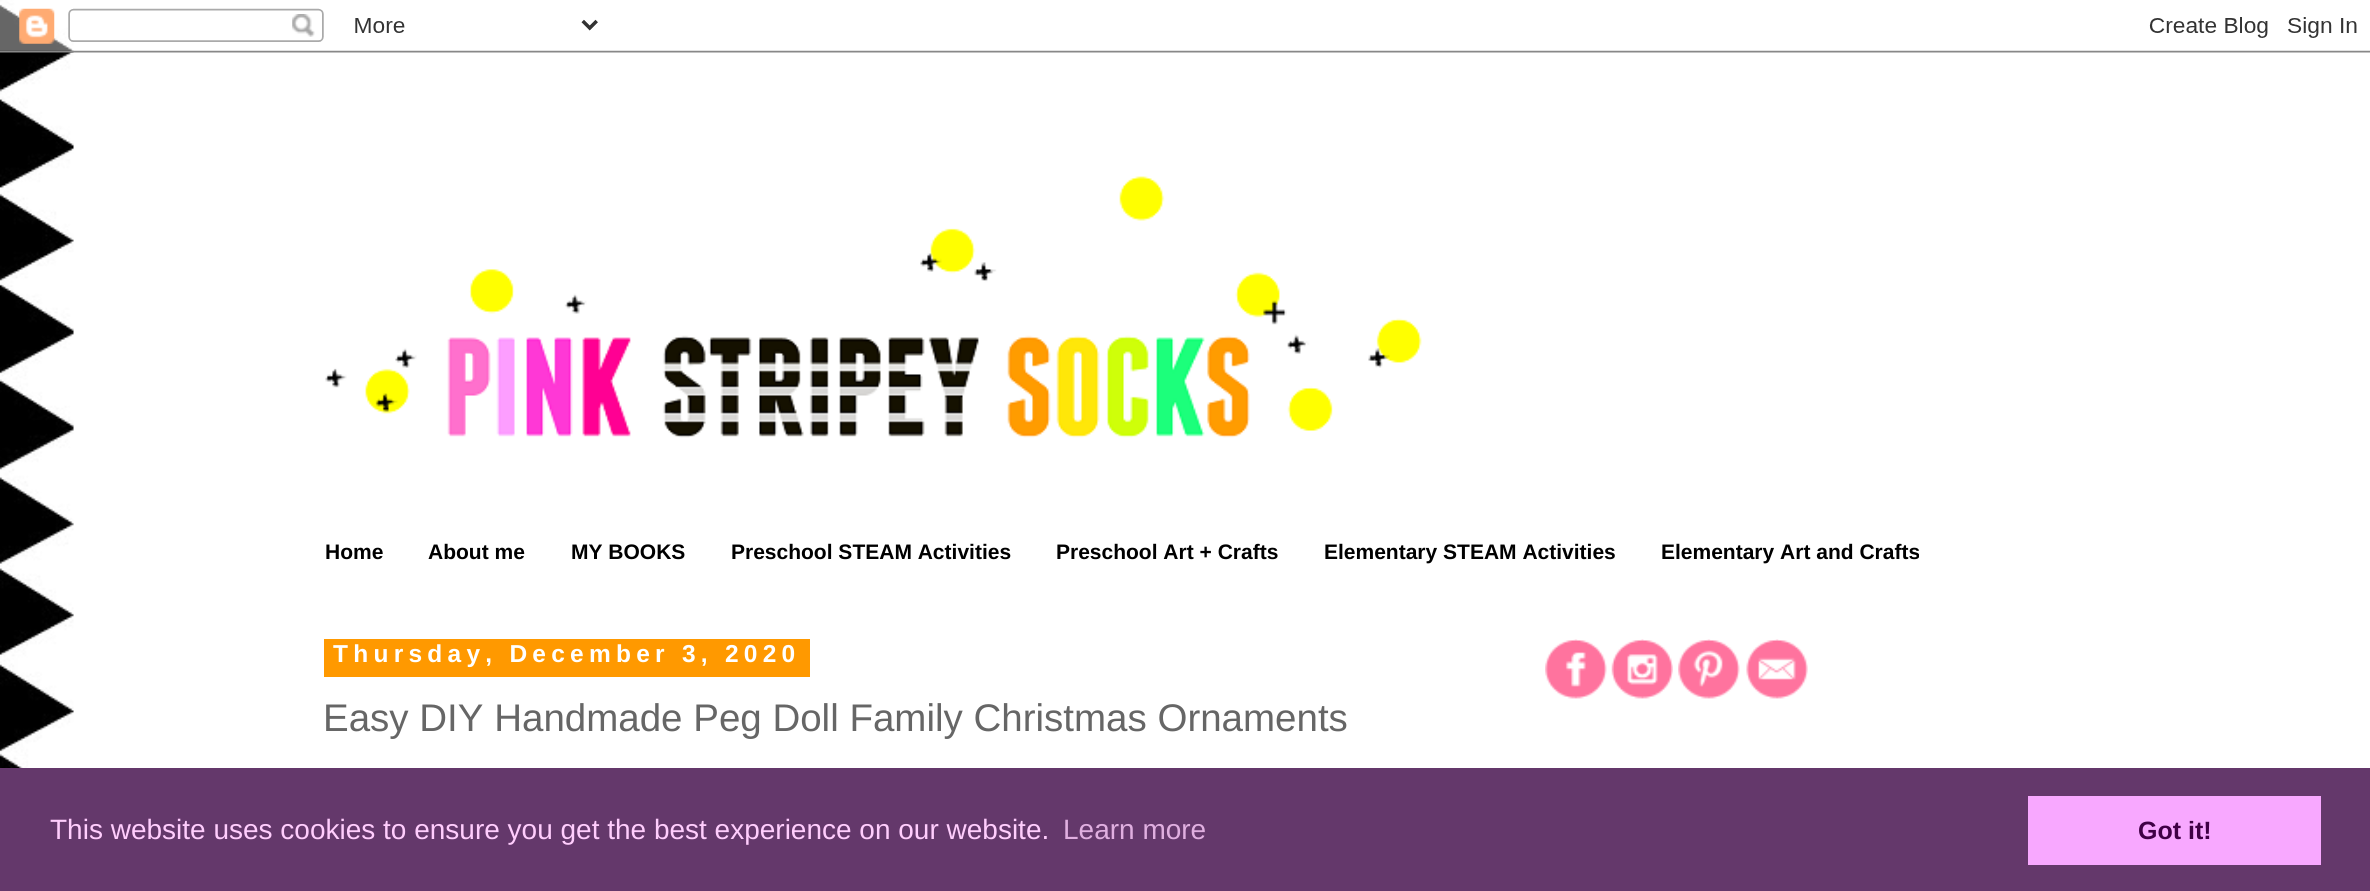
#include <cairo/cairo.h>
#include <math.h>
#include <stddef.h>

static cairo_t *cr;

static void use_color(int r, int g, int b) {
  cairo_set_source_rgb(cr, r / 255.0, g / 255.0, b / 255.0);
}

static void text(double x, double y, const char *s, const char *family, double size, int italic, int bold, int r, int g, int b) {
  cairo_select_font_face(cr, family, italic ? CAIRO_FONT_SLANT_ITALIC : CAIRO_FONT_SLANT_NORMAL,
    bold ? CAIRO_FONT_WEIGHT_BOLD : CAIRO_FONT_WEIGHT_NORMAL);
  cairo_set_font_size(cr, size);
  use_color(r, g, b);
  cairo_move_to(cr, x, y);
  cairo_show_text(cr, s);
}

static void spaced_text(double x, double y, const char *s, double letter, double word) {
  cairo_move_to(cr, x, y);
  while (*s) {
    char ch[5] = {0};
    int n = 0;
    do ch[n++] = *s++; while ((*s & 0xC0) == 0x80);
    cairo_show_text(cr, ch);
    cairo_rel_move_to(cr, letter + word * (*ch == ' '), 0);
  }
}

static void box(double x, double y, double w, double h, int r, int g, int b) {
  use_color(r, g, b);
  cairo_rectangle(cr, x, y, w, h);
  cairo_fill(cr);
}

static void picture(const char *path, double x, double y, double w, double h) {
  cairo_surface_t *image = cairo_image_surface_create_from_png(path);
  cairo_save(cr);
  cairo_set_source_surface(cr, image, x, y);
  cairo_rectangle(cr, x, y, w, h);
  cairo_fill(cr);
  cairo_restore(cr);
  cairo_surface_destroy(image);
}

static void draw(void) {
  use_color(255, 255, 255);
  cairo_paint(cr);
  picture("img_01.png", 0, 0, 74, 768);
  picture("img_02.png", 0, 4, 2370, 49);
  picture("img_03.png", 325, 176, 1097, 262);
  box(324, 639, 486, 38, 255, 153, 0);
  picture("img_04.png", 1545, 639, 62, 60);
  picture("img_05.png", 1611, 639, 62, 60);
  picture("img_06.png", 1678, 639, 62, 60);
  picture("img_07.png", 1746, 639, 62, 60);
  box(0, 768, 2370, 123, 100, 56, 107);
  box(2028, 796, 293, 69, 248, 168, 255);
  text(325, 559, "Home", "Liberation Sans", 21, 0, 1, 0, 0, 0);
  text(428, 559, "About me", "Liberation Sans", 21, 0, 1, 0, 0, 0);
  text(571, 559, "MY BOOKS", "Liberation Sans", 21, 0, 1, 0, 0, 0);
  text(731, 559, "Preschool STEAM Activities", "Liberation Sans", 21, 0, 1, 0, 0, 0);
  text(1056, 559, "Preschool Art + Crafts", "Liberation Sans", 21, 0, 1, 0, 0, 0);
  text(1324, 559, "Elementary STEAM Activities", "Liberation Sans", 21, 0, 1, 0, 0, 0);
  text(1661, 559, "Elementary Art and Crafts", "Liberation Sans", 21, 0, 1, 0, 0, 0);
  cairo_set_font_size(cr, 24.5);
  use_color(255, 255, 255);
  spaced_text(333, 662, "Thursday, December 3, 2020", 5.25, 0);
  text(323, 731, "Easy DIY Handmade Peg Doll Family Christmas Ornaments", "Liberation Sans", 38.5, 0, 0, 102, 102, 102);
  text(50, 839, "This website uses cookies to ensure you get the best experience on our website.", "Liberation Sans", 28, 0, 0, 255, 205, 253);
  text(1063, 839, "Learn more", "Liberation Sans", 28, 0, 0, 224, 175, 224);
  text(2138, 839, "Got it!", "Liberation Sans", 25, 0, 1, 63, 0, 69);
}

int main(void) {
  cairo_surface_t *surface = cairo_image_surface_create(CAIRO_FORMAT_RGB24, 2370, 891);
  cr = cairo_create(surface);
  cairo_font_options_t *options = cairo_font_options_create();
  cairo_font_options_set_hint_metrics(options, CAIRO_HINT_METRICS_OFF);
  cairo_font_options_set_hint_style(options, CAIRO_HINT_STYLE_NONE);
  cairo_set_font_options(cr, options);
  cairo_set_miter_limit(cr, 4);
  draw();
  cairo_surface_write_to_png(surface, "out.png");
  cairo_font_options_destroy(options);
  cairo_destroy(cr);
  cairo_surface_destroy(surface);
  return 0;
}
